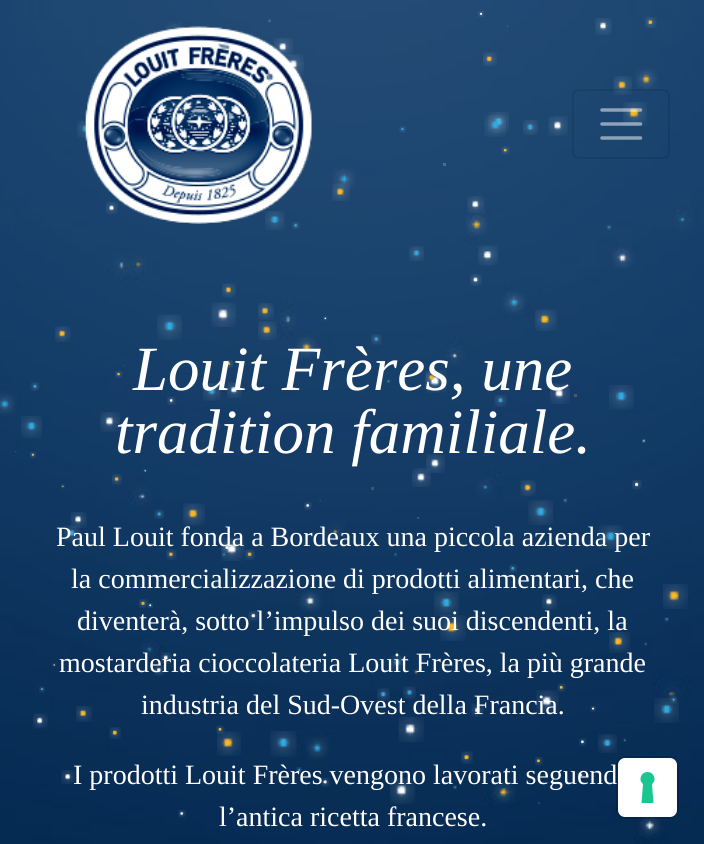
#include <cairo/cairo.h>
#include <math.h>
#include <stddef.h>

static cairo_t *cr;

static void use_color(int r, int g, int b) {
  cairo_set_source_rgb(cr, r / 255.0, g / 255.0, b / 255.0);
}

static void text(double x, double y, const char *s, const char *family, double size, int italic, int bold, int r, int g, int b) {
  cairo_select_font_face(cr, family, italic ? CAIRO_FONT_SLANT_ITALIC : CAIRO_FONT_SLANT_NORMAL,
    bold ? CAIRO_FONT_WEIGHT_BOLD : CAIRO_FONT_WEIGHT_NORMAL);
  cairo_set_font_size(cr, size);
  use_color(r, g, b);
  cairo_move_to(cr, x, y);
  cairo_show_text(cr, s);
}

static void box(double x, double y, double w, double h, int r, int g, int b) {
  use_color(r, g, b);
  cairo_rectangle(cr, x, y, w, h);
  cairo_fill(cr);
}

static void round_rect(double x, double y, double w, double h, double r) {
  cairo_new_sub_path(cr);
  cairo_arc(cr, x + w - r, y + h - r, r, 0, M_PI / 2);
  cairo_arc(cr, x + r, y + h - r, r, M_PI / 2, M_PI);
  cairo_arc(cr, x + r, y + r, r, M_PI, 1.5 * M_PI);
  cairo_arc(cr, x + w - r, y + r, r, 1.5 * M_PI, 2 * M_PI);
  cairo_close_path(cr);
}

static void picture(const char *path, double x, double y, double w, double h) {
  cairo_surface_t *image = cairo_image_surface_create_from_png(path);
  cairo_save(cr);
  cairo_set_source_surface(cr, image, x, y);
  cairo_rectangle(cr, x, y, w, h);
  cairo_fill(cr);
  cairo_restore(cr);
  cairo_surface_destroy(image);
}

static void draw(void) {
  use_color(255, 255, 255);
  cairo_paint(cr);
  picture("img_01.png", 0, 0, 704, 844);
  picture("img_02.png", 478, 11, 6, 6);
  picture("img_03.png", 268, 19, 3, 4);
  picture("img_04.png", 595, 18, 17, 17);
  picture("img_05.png", 645, 17, 12, 11);
  picture("img_06.png", 507, 25, 1, 2);
  picture("img_07.png", 137, 37, 8, 4);
  picture("img_09.png", 284, 54, 20, 21);
  picture("img_08.png", 274, 38, 19, 19);
  picture("img_10.png", 483, 52, 14, 14);
  picture("img_11.png", 613, 76, 19, 19);
  picture("img_12.png", 488, 112, 21, 21);
  picture("img_13.png", 623, 102, 24, 24);
  picture("img_14.png", 77, 121, 11, 17);
  picture("img_15.png", 399, 126, 7, 7);
  picture("img_16.png", 484, 115, 22, 22);
  picture("img_17.png", 523, 120, 15, 15);
  picture("img_18.png", 548, 116, 20, 20);
  picture("img_19.png", 501, 146, 9, 9);
  picture("img_20.png", 93, 163, 5, 10);
  box(443, 163, 3, 3, 74, 108, 141);
  picture("img_21.png", 97, 173, 3, 4);
  picture("img_22.png", 332, 183, 18, 18);
  picture("img_23.png", 106, 202, 12, 12);
  picture("img_24.png", 467, 196, 18, 17);
  picture("img_25.png", 265, 211, 20, 19);
  picture("img_26.png", 292, 222, 8, 8);
  picture("img_27.png", 477, 227, 2, 2);
  picture("img_28.png", 606, 225, 6, 5);
  picture("img_29.png", 409, 246, 15, 15);
  picture("img_30.png", 478, 245, 20, 21);
  picture("img_31.png", 470, 274, 12, 12);
  picture("img_32.png", 222, 283, 14, 15);
  picture("img_33.png", 157, 314, 25, 26);
  picture("img_34.png", 211, 302, 25, 25);
  picture("img_35.png", 258, 303, 16, 17);
  picture("img_36.png", 323, 316, 5, 5);
  picture("img_37.png", 535, 309, 22, 22);
  picture("img_38.png", 55, 326, 16, 16);
  picture("img_39.png", 258, 321, 19, 19);
  picture("img_40.png", 371, 334, 11, 11);
  picture("img_41.png", 123, 365, 2, 2);
  picture("img_42.png", 225, 360, 8, 8);
  picture("img_43.png", 115, 371, 8, 7);
  picture("img_44.png", 425, 370, 22, 23);
  picture("img_45.png", 386, 379, 5, 4);
  picture("img_46.png", 426, 372, 12, 12);
  picture("img_47.png", 30, 382, 10, 9);
  picture("img_48.png", 167, 396, 9, 9);
  picture("img_49.png", 203, 383, 18, 18);
  picture("img_50.png", 227, 382, 15, 16);
  picture("img_51.png", 494, 395, 13, 12);
  picture("img_52.png", 550, 383, 20, 21);
  box(574, 394, 3, 3, 73, 91, 102);
  picture("img_53.png", 609, 385, 25, 25);
  picture("img_54.png", 21, 416, 21, 22);
  picture("img_55.png", 100, 412, 20, 20);
  picture("img_56.png", 210, 420, 10, 10);
  box(202, 440, 2, 2, 27, 70, 113);
  picture("img_57.png", 642, 439, 4, 4);
  picture("img_58.png", 15, 451, 2, 1);
  picture("img_59.png", 30, 452, 6, 6);
  picture("img_62.png", 412, 468, 19, 19);
  picture("img_60.png", 426, 454, 19, 19);
  picture("img_61.png", 143, 469, 4, 3);
  picture("img_63.png", 61, 484, 4, 5);
  picture("img_64.png", 112, 474, 10, 11);
  box(371, 487, 3, 3, 66, 88, 101);
  picture("img_65.png", 520, 480, 16, 16);
  picture("img_66.png", 632, 480, 10, 10);
  picture("img_75.png", 63, 525, 17, 17);
  picture("img_67.png", 70, 512, 17, 16);
  picture("img_68.png", 154, 509, 10, 10);
  picture("img_69.png", 183, 503, 22, 23);
  picture("img_70.png", 304, 502, 8, 8);
  picture("img_71.png", 319, 499, 2, 3);
  picture("img_72.png", 417, 517, 3, 2);
  picture("img_73.png", 528, 500, 25, 25);
  picture("img_74.png", 563, 498, 5, 5);
  picture("img_78.png", 222, 542, 11, 11);
  picture("img_76.png", 221, 537, 24, 24);
  picture("img_77.png", 599, 525, 24, 24);
  picture("img_79.png", 166, 549, 11, 11);
  picture("img_80.png", 222, 552, 4, 5);
  picture("img_81.png", 245, 549, 10, 11);
  box(394, 553, 3, 3, 34, 82, 124);
  picture("img_82.png", 509, 564, 8, 9);
  picture("img_83.png", 139, 599, 9, 9);
  picture("img_84.png", 148, 603, 5, 5);
  picture("img_85.png", 434, 591, 25, 25);
  picture("img_86.png", 542, 594, 15, 16);
  picture("img_87.png", 663, 584, 25, 25);
  picture("img_88.png", 79, 616, 7, 7);
  picture("img_89.png", 118, 615, 5, 5);
  picture("img_90.png", 248, 611, 11, 10);
  picture("img_91.png", 440, 615, 26, 26);
  picture("img_92.png", 664, 617, 5, 5);
  picture("img_93.png", 609, 632, 21, 21);
  picture("img_94.png", 644, 642, 3, 4);
  picture("img_95.png", 52, 663, 4, 4);
  picture("img_96.png", 154, 665, 11, 11);
  picture("img_97.png", 160, 652, 12, 12);
  picture("img_98.png", 389, 655, 16, 16);
  picture("img_99.png", 414, 669, 5, 6);
  picture("img_100.png", 39, 686, 6, 7);
  picture("img_101.png", 377, 688, 13, 13);
  picture("img_102.png", 403, 686, 13, 13);
  picture("img_103.png", 536, 690, 23, 23);
  picture("img_104.png", 557, 683, 9, 9);
  picture("img_109.png", 654, 698, 25, 25);
  picture("img_105.png", 670, 696, 7, 8);
  picture("img_106.png", 76, 706, 16, 16);
  picture("img_107.png", 471, 704, 13, 13);
  picture("img_108.png", 590, 706, 6, 6);
  picture("img_110.png", 33, 713, 15, 16);
  picture("img_111.png", 109, 727, 12, 12);
  picture("img_114.png", 217, 731, 24, 25);
  picture("img_112.png", 216, 725, 9, 9);
  picture("img_113.png", 398, 717, 26, 25);
  picture("img_115.png", 270, 731, 27, 26);
  picture("img_116.png", 579, 738, 8, 8);
  picture("img_117.png", 598, 734, 19, 19);
  picture("img_118.png", 623, 738, 4, 4);
  picture("img_119.png", 461, 751, 12, 13);
  picture("img_120.png", 535, 757, 8, 9);
  picture("img_121.png", 61, 770, 14, 14);
  picture("img_122.png", 296, 767, 6, 6);
  picture("img_123.png", 577, 771, 8, 8);
  picture("img_124.png", 321, 777, 9, 10);
  picture("img_125.png", 390, 778, 25, 26);
  picture("img_126.png", 453, 785, 4, 5);
  picture("img_127.png", 538, 802, 2, 2);
  picture("img_128.png", 178, 810, 8, 8);
  picture("img_129.png", 85, 26, 227, 198);
  round_rect(573, 90, 96, 68, 6);
  cairo_set_source_rgba(cr, 0, 0, 0, 0.1);
  cairo_stroke(cr);
  cairo_new_path(cr);
  cairo_move_to(cr, 602, 110);
  cairo_line_to(cr, 640.5, 110);
  cairo_move_to(cr, 602, 124);
  cairo_line_to(cr, 640.5, 124);
  cairo_move_to(cr, 602, 138);
  cairo_line_to(cr, 640.5, 138);
  cairo_set_source_rgba(cr, 1, 1, 1, 0.5);
  cairo_set_line_width(cr, 3.5);
  cairo_set_line_cap(cr, CAIRO_LINE_CAP_ROUND);
  cairo_stroke(cr);
  text(133, 390, "Louit Frères, une", "Liberation Serif", 63, 1, 0, 255, 255, 255);
  text(115, 453, "tradition familiale.", "Liberation Serif", 63, 1, 0, 255, 255, 255);
  text(56, 546, "Paul Louit fonda a Bordeaux una piccola azienda per", "Liberation Serif", 28, 0, 0, 255, 255, 255);
  text(71, 588, "la commercializzazione di prodotti alimentari, che", "Liberation Serif", 28, 0, 0, 255, 255, 255);
  text(77, 630, "diventerà, sotto l’impulso dei suoi discendenti, la", "Liberation Serif", 28, 0, 0, 255, 255, 255);
  text(59, 672, "mostarderia cioccolateria Louit Frères, la più grande", "Liberation Serif", 28, 0, 0, 255, 255, 255);
  text(141, 714, "industria del Sud-Ovest della Francia.", "Liberation Serif", 28, 0, 0, 255, 255, 255);
  text(73, 784, "I prodotti Louit Frères vengono lavorati seguend", "Liberation Serif", 28, 0, 0, 255, 255, 255);
  text(219, 826, "l’antica ricetta francese.", "Liberation Serif", 28, 0, 0, 255, 255, 255);
  round_rect(617, 757, 61, 61, 8);
  cairo_set_source_rgba(cr, 0, 0, 0, 0.15);
  cairo_set_line_width(cr, 2);
  cairo_set_line_cap(cr, CAIRO_LINE_CAP_BUTT);
  cairo_stroke(cr);
  use_color(255, 255, 255);
  round_rect(618, 758, 59, 59, 7);
  cairo_fill(cr);
  use_color(28, 198, 145);
  cairo_set_fill_rule(cr, CAIRO_FILL_RULE_EVEN_ODD);
  cairo_new_path(cr);
  cairo_move_to(cr, 647.5, 772);
  cairo_curve_to(cr, 654, 772, 657, 780, 652, 784);
  cairo_line_to(cr, 653.5, 803);
  cairo_line_to(cr, 641.5, 803);
  cairo_line_to(cr, 643, 784);
  cairo_curve_to(cr, 638, 780, 641, 772, 647.5, 772);
  cairo_close_path(cr);
  cairo_fill(cr);
}

int main(void) {
  cairo_surface_t *surface = cairo_image_surface_create(CAIRO_FORMAT_RGB24, 704, 844);
  cr = cairo_create(surface);
  cairo_font_options_t *options = cairo_font_options_create();
  cairo_font_options_set_hint_metrics(options, CAIRO_HINT_METRICS_OFF);
  cairo_font_options_set_hint_style(options, CAIRO_HINT_STYLE_NONE);
  cairo_set_font_options(cr, options);
  cairo_set_miter_limit(cr, 4);
  draw();
  cairo_surface_write_to_png(surface, "out.png");
  cairo_font_options_destroy(options);
  cairo_destroy(cr);
  cairo_surface_destroy(surface);
  return 0;
}
